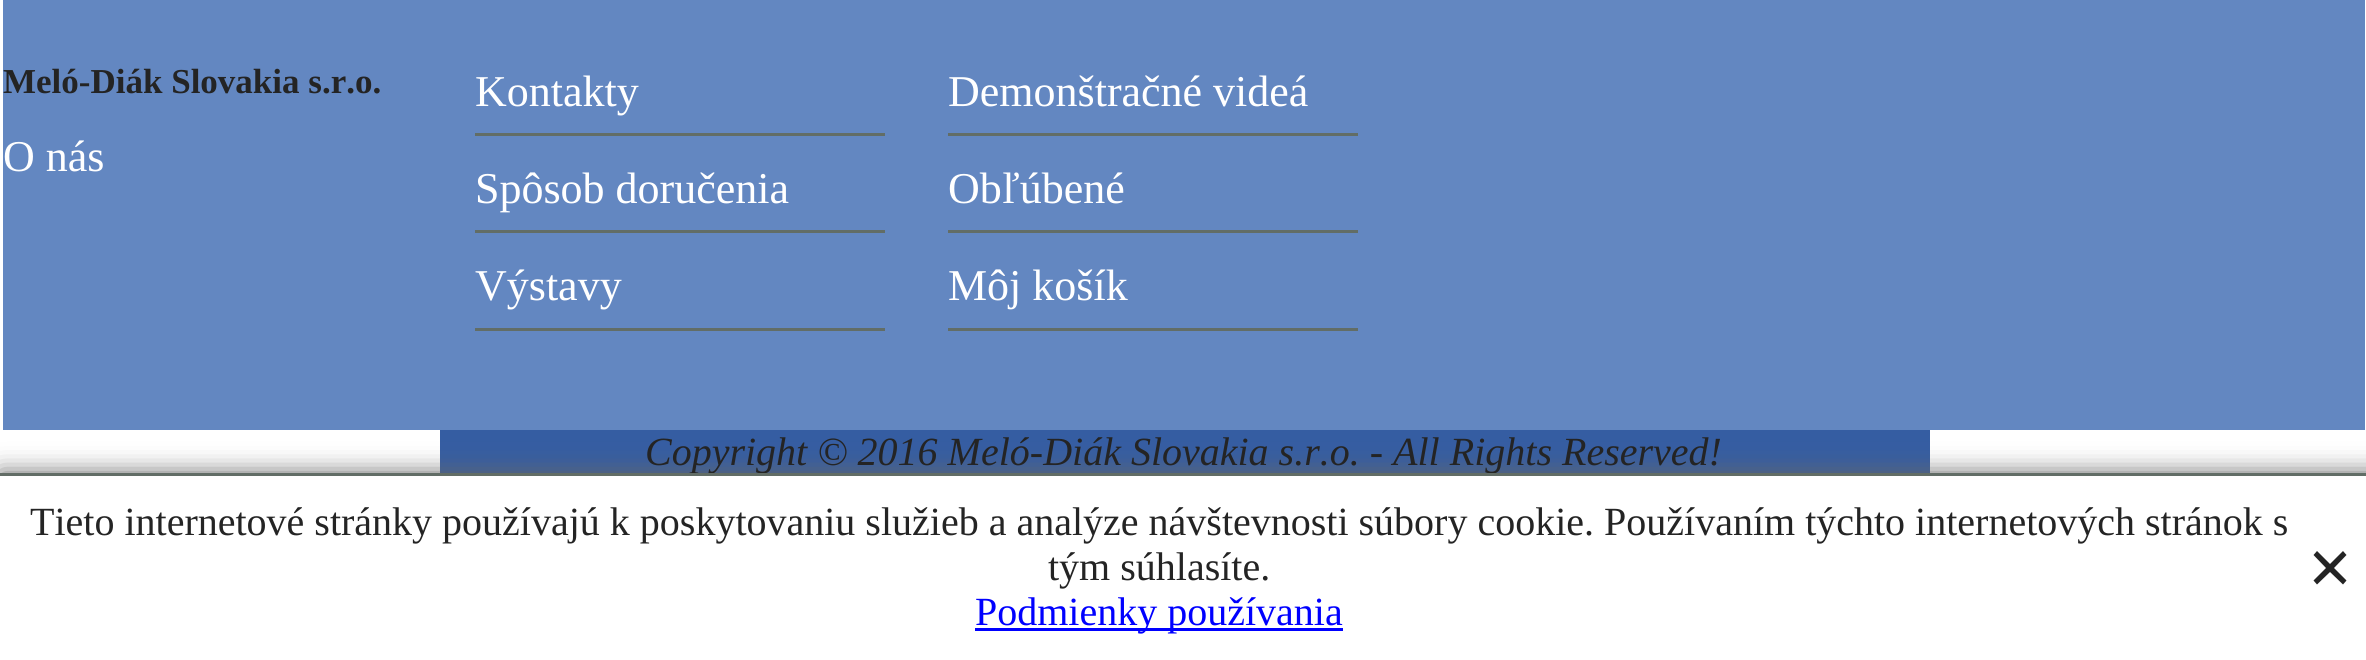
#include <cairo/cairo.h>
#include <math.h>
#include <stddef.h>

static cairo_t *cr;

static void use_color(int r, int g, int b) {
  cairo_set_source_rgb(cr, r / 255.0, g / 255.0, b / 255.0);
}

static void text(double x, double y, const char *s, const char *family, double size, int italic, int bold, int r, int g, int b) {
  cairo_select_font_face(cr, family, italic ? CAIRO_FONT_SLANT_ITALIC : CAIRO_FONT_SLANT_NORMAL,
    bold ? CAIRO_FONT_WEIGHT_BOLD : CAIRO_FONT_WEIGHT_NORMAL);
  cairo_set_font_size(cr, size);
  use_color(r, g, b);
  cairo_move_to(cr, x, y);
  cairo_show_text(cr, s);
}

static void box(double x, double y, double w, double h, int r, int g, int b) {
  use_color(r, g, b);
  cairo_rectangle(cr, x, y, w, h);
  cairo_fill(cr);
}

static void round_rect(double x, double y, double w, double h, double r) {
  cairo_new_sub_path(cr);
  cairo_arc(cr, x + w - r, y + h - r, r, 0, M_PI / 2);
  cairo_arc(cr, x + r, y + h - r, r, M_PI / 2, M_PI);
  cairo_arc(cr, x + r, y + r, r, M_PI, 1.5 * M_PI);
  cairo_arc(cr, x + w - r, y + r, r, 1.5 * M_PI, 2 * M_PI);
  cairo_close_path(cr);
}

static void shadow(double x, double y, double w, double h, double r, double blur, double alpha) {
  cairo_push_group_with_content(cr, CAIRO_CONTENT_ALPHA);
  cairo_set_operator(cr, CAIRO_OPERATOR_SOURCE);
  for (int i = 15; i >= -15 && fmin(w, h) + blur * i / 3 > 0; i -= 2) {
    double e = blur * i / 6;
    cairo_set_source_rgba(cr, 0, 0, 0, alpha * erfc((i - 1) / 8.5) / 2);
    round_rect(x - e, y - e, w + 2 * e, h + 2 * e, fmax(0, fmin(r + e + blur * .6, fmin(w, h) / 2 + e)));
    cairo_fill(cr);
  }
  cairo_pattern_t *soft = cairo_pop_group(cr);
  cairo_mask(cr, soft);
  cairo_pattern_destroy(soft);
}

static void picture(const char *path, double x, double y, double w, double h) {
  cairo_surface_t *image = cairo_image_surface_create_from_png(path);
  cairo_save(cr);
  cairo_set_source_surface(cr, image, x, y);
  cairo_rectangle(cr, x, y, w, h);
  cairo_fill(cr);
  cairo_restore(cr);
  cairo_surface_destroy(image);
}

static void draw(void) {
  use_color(255, 255, 255);
  cairo_paint(cr);
  picture("img_01.png", 440, 430, 1490, 43);
  box(3, 0, 2362, 430, 99, 135, 193);
  box(475, 133, 410, 3, 98, 109, 102);
  box(475, 230, 410, 3, 98, 109, 102);
  box(475, 328, 410, 3, 98, 109, 102);
  box(948, 133, 410, 3, 98, 109, 102);
  box(948, 230, 410, 3, 98, 109, 102);
  box(948, 328, 410, 3, 98, 109, 102);
  use_color(102, 102, 102);
  shadow(0, 473, 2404, 187, 0, 12.5, 1);
  box(0, 476, 2366, 184, 255, 255, 255);
  use_color(36, 36, 36);
  cairo_new_path(cr);
  cairo_move_to(cr, 2346.5, 555);
  cairo_line_to(cr, 2343, 551);
  cairo_line_to(cr, 2330, 564);
  cairo_line_to(cr, 2317, 551);
  cairo_line_to(cr, 2313.5, 555);
  cairo_line_to(cr, 2326, 568);
  cairo_line_to(cr, 2313.5, 580.5);
  cairo_line_to(cr, 2317, 584.5);
  cairo_line_to(cr, 2330, 572);
  cairo_line_to(cr, 2343, 584.5);
  cairo_line_to(cr, 2346.5, 580.5);
  cairo_line_to(cr, 2334, 568);
  cairo_close_path(cr);
  cairo_fill(cr);
  box(975, 628, 368, 3, 0, 0, 255);
  text(3, 93, "Meló-Diák Slovakia s.r.o.", "Liberation Serif", 35, 0, 1, 36, 36, 36);
  text(3, 171, "O nás", "Liberation Serif", 44, 0, 0, 255, 255, 255);
  text(475, 106, "Kontakty", "Liberation Serif", 44, 0, 0, 255, 255, 255);
  text(475, 203, "Spôsob doručenia", "Liberation Serif", 44, 0, 0, 255, 255, 255);
  text(475, 300, "Výstavy", "Liberation Serif", 44, 0, 0, 255, 255, 255);
  text(948, 106, "Demonštračné videá", "Liberation Serif", 44, 0, 0, 255, 255, 255);
  text(948, 203, "Obľúbené", "Liberation Serif", 44, 0, 0, 255, 255, 255);
  text(948, 300, "Môj košík", "Liberation Serif", 44, 0, 0, 255, 255, 255);
  text(645, 465, "Copyright © 2016 Meló-Diák Slovakia s.r.o. - All Rights Reserved!", "Liberation Serif", 40, 1, 0, 36, 36, 36);
  box(0, 473, 2366, 3, 98, 109, 102);
  text(30, 535, "Tieto internetové stránky používajú k poskytovaniu služieb a analýze návštevnosti súbory cookie. Používaním týchto internetových stránok s", "Liberation Serif", 40, 0, 0, 36, 36, 36);
  text(1048, 580, "tým súhlasíte.", "Liberation Serif", 40, 0, 0, 36, 36, 36);
  text(975, 625, "Podmienky používania", "Liberation Serif", 40, 0, 0, 0, 0, 255);
}

int main(void) {
  cairo_surface_t *surface = cairo_image_surface_create(CAIRO_FORMAT_RGB24, 2366, 660);
  cr = cairo_create(surface);
  cairo_font_options_t *options = cairo_font_options_create();
  cairo_font_options_set_hint_metrics(options, CAIRO_HINT_METRICS_OFF);
  cairo_font_options_set_hint_style(options, CAIRO_HINT_STYLE_NONE);
  cairo_set_font_options(cr, options);
  cairo_set_miter_limit(cr, 4);
  draw();
  cairo_surface_write_to_png(surface, "out.png");
  cairo_font_options_destroy(options);
  cairo_destroy(cr);
  cairo_surface_destroy(surface);
  return 0;
}
